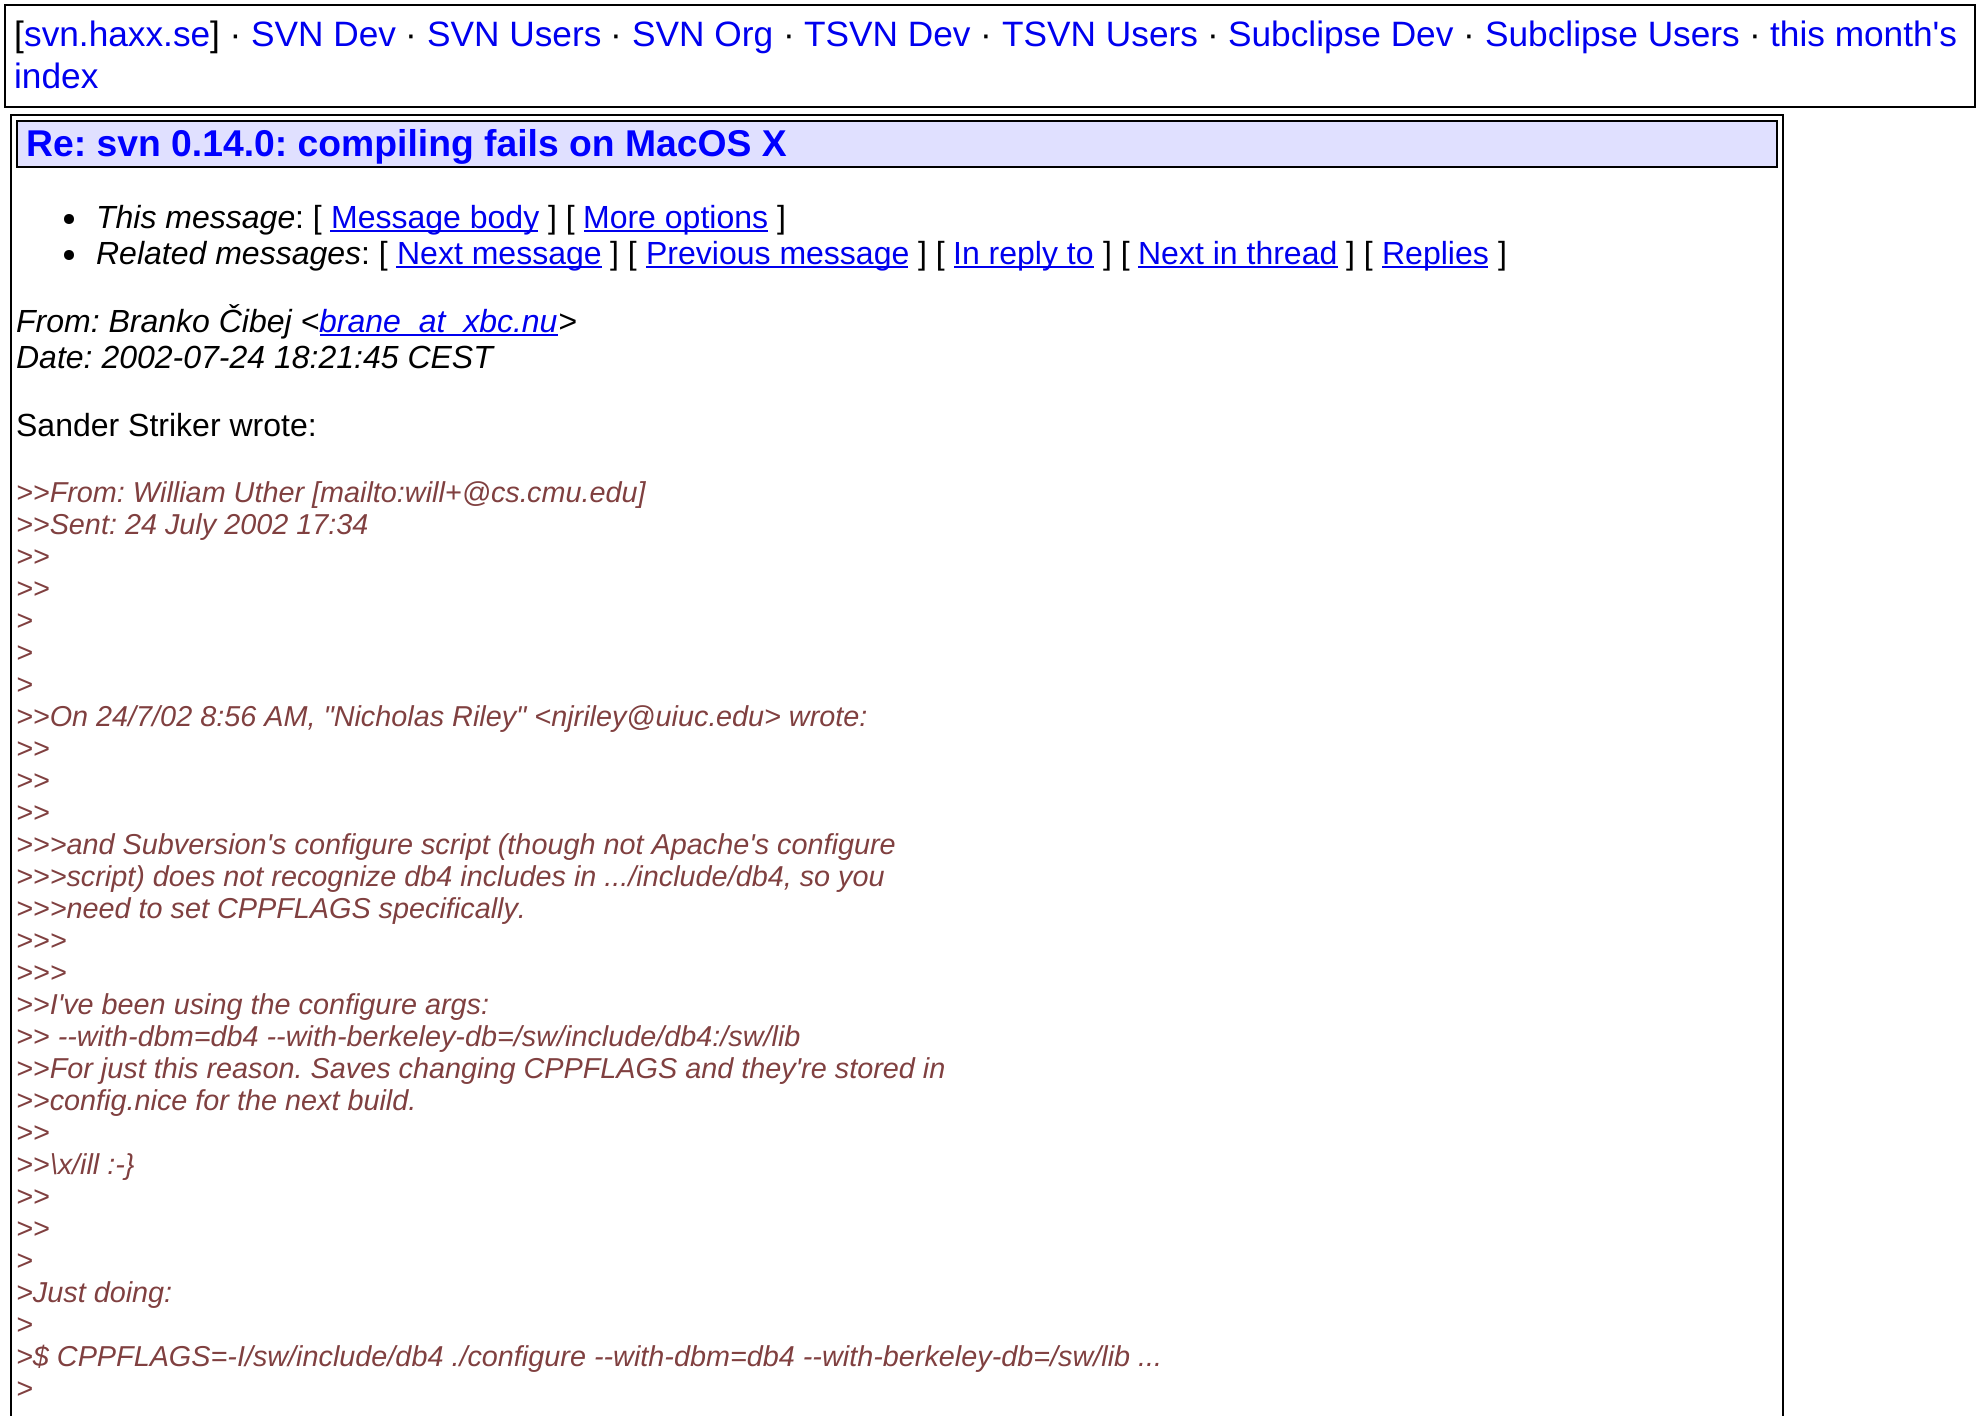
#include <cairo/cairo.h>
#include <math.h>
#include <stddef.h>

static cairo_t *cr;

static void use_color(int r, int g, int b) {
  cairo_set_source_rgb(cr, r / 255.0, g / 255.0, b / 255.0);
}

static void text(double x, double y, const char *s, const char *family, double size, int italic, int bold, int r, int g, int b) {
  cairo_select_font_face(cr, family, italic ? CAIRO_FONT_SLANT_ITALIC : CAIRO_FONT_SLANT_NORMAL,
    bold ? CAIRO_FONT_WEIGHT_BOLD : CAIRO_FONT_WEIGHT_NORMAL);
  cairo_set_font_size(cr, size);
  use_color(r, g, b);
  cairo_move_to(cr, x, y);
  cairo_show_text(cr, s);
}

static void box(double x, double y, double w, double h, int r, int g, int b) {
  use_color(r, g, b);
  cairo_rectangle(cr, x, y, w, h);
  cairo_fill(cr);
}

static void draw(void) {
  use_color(255, 255, 255);
  cairo_paint(cr);
  cairo_rectangle(cr, 5, 5, 1970, 102);
  use_color(0, 0, 0);
  cairo_stroke(cr);
  cairo_rectangle(cr, 11, 115, 1772, 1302);
  cairo_stroke(cr);
  use_color(224, 224, 255);
  cairo_rectangle(cr, 17, 121, 1760, 46);
  cairo_fill_preserve(cr);
  use_color(0, 0, 0);
  cairo_stroke(cr);
  cairo_arc(cr, 69, 219, 5, 0, 2 * M_PI);
  cairo_fill(cr);
  box(330, 230, 208, 2, 0, 0, 238);
  box(584, 230, 184, 2, 0, 0, 238);
  use_color(0, 0, 0);
  cairo_arc(cr, 69, 255, 5, 0, 2 * M_PI);
  cairo_fill(cr);
  box(396, 266, 206, 2, 0, 0, 238);
  box(646, 266, 262, 2, 0, 0, 238);
  box(954, 266, 140, 2, 0, 0, 238);
  box(1138, 266, 200, 2, 0, 0, 238);
  box(1382, 266, 106, 2, 0, 0, 238);
  box(320, 334, 238, 2, 0, 0, 238);
  text(14, 46, "[", "Liberation Sans", 35.25, 0, 0, 0, 0, 0);
  text(24, 46, "svn.haxx.se", "Liberation Sans", 35.25, 0, 0, 0, 0, 238);
  text(210, 46, "] ·", "Liberation Sans", 35.25, 0, 0, 0, 0, 0);
  text(251, 46, "SVN Dev", "Liberation Sans", 35.25, 0, 0, 0, 0, 238);
  text(405, 46, "·", "Liberation Sans", 35.25, 0, 0, 0, 0, 0);
  text(427, 46, "SVN Users", "Liberation Sans", 35.25, 0, 0, 0, 0, 238);
  text(610, 46, "·", "Liberation Sans", 35.25, 0, 0, 0, 0, 0);
  text(632, 46, "SVN Org", "Liberation Sans", 35.25, 0, 0, 0, 0, 238);
  text(783, 46, "·", "Liberation Sans", 35.25, 0, 0, 0, 0, 0);
  text(804, 46, "TSVN Dev", "Liberation Sans", 35.25, 0, 0, 0, 0, 238);
  text(980, 46, "·", "Liberation Sans", 35.25, 0, 0, 0, 0, 0);
  text(1002, 46, "TSVN Users", "Liberation Sans", 35.25, 0, 0, 0, 0, 238);
  text(1207, 46, "·", "Liberation Sans", 35.25, 0, 0, 0, 0, 0);
  text(1228, 46, "Subclipse Dev", "Liberation Sans", 35.25, 0, 0, 0, 0, 238);
  text(1463, 46, "·", "Liberation Sans", 35.25, 0, 0, 0, 0, 0);
  text(1485, 46, "Subclipse Users", "Liberation Sans", 35.25, 0, 0, 0, 0, 238);
  text(1749, 46, "·", "Liberation Sans", 35.25, 0, 0, 0, 0, 0);
  text(1770, 46, "this month's", "Liberation Sans", 35.25, 0, 0, 0, 0, 238);
  text(14, 88, "index", "Liberation Sans", 35.25, 0, 0, 0, 0, 238);
  text(26, 156, "Re: svn 0.14.0: compiling fails on MacOS X", "Liberation Sans", 37.3, 0, 1, 0, 0, 255);
  text(96, 228, "This message", "Liberation Sans", 32, 1, 0, 0, 0, 0);
  text(295, 228, ": [", "Liberation Sans", 32, 0, 0, 0, 0, 0);
  text(331, 228, "Message body", "Liberation Sans", 32, 0, 0, 0, 0, 238);
  text(548, 228, "] [", "Liberation Sans", 32, 0, 0, 0, 0, 0);
  text(583, 228, "More options", "Liberation Sans", 32, 0, 0, 0, 0, 238);
  text(777, 228, "]", "Liberation Sans", 32, 0, 0, 0, 0, 0);
  text(96, 264, "Related messages", "Liberation Sans", 32, 1, 0, 0, 0, 0);
  text(361, 264, ": [", "Liberation Sans", 32, 0, 0, 0, 0, 0);
  text(397, 264, "Next message", "Liberation Sans", 32, 0, 0, 0, 0, 238);
  text(610, 264, "] [", "Liberation Sans", 32, 0, 0, 0, 0, 0);
  text(646, 264, "Previous message", "Liberation Sans", 32, 0, 0, 0, 0, 238);
  text(918, 264, "] [", "Liberation Sans", 32, 0, 0, 0, 0, 0);
  text(953, 264, "In reply to", "Liberation Sans", 32, 0, 0, 0, 0, 238);
  text(1103, 264, "] [", "Liberation Sans", 32, 0, 0, 0, 0, 0);
  text(1138, 264, "Next in thread", "Liberation Sans", 32, 0, 0, 0, 0, 238);
  text(1346, 264, "] [", "Liberation Sans", 32, 0, 0, 0, 0, 0);
  text(1382, 264, "Replies", "Liberation Sans", 32, 0, 0, 0, 0, 238);
  text(1498, 264, "]", "Liberation Sans", 32, 0, 0, 0, 0, 0);
  text(16, 332, "From: Branko Čibej <", "Liberation Sans", 32, 1, 0, 0, 0, 0);
  text(319, 332, "brane_at_xbc.nu", "Liberation Sans", 32, 1, 0, 0, 0, 238);
  text(558, 332, ">", "Liberation Sans", 32, 1, 0, 0, 0, 0);
  text(16, 368, "Date: 2002-07-24 18:21:45 CEST", "Liberation Sans", 32, 1, 0, 0, 0, 0);
  text(16, 436, "Sander Striker wrote:", "Liberation Sans", 32, 0, 0, 0, 0, 0);
  text(16, 502, ">>From: William Uther [mailto:will+@cs.", "Liberation Sans", 28.8, 1, 0, 128, 64, 64);
  text(527, 502, "cmu.edu]", "Liberation Sans", 28.8, 1, 0, 128, 64, 64);
  text(16, 534, ">>Sent: 24 July 2002 17:34", "Liberation Sans", 28.8, 1, 0, 128, 64, 64);
  text(16, 566, ">>", "Liberation Sans", 28.8, 1, 0, 128, 64, 64);
  text(16, 598, ">>", "Liberation Sans", 28.8, 1, 0, 128, 64, 64);
  text(16, 630, ">", "Liberation Sans", 28.8, 1, 0, 128, 64, 64);
  text(16, 662, ">", "Liberation Sans", 28.8, 1, 0, 128, 64, 64);
  text(16, 694, ">", "Liberation Sans", 28.8, 1, 0, 128, 64, 64);
  text(16, 726, ">>On 24/7/02 8:56 AM, \"Nicholas Riley\" <njriley@uiuc.", "Liberation Sans", 28.8, 1, 0, 128, 64, 64);
  text(716, 726, "edu> wrote:", "Liberation Sans", 28.8, 1, 0, 128, 64, 64);
  text(16, 758, ">>", "Liberation Sans", 28.8, 1, 0, 128, 64, 64);
  text(16, 790, ">>", "Liberation Sans", 28.8, 1, 0, 128, 64, 64);
  text(16, 822, ">>", "Liberation Sans", 28.8, 1, 0, 128, 64, 64);
  text(16, 854, ">>>and Subversion's configure script (though not Apache's configure", "Liberation Sans", 28.8, 1, 0, 128, 64, 64);
  text(16, 886, ">>>script) does not recognize db4 includes in .../include/db4, so you", "Liberation Sans", 28.8, 1, 0, 128, 64, 64);
  text(16, 918, ">>>need to set CPPFLAGS specifically.", "Liberation Sans", 28.8, 1, 0, 128, 64, 64);
  text(16, 950, ">>>", "Liberation Sans", 28.8, 1, 0, 128, 64, 64);
  text(16, 982, ">>>", "Liberation Sans", 28.8, 1, 0, 128, 64, 64);
  text(16, 1014, ">>I've been using the configure args:", "Liberation Sans", 28.8, 1, 0, 128, 64, 64);
  text(16, 1046, ">> --with-dbm=db4 --with-berkeley-db=/sw/include/db4:/sw/lib", "Liberation Sans", 28.8, 1, 0, 128, 64, 64);
  text(16, 1078, ">>For just this reason. Saves changing CPPFLAGS and they're stored in", "Liberation Sans", 28.8, 1, 0, 128, 64, 64);
  text(16, 1110, ">>config.nice for the next build.", "Liberation Sans", 28.8, 1, 0, 128, 64, 64);
  text(16, 1142, ">>", "Liberation Sans", 28.8, 1, 0, 128, 64, 64);
  text(16, 1174, ">>\\x/ill :-}", "Liberation Sans", 28.8, 1, 0, 128, 64, 64);
  text(16, 1206, ">>", "Liberation Sans", 28.8, 1, 0, 128, 64, 64);
  text(16, 1238, ">>", "Liberation Sans", 28.8, 1, 0, 128, 64, 64);
  text(16, 1270, ">", "Liberation Sans", 28.8, 1, 0, 128, 64, 64);
  text(16, 1302, ">Just doing:", "Liberation Sans", 28.8, 1, 0, 128, 64, 64);
  text(16, 1334, ">", "Liberation Sans", 28.8, 1, 0, 128, 64, 64);
  text(16, 1366, ">$ CPPFLAGS=-I/sw/include/db4 ./configure --with-dbm=db4 --with-berkeley-db=/sw/lib ...", "Liberation Sans", 28.8, 1, 0, 128, 64, 64);
  text(16, 1398, ">", "Liberation Sans", 28.8, 1, 0, 128, 64, 64);
}

int main(void) {
  cairo_surface_t *surface = cairo_image_surface_create(CAIRO_FORMAT_RGB24, 1979, 1416);
  cr = cairo_create(surface);
  cairo_font_options_t *options = cairo_font_options_create();
  cairo_font_options_set_hint_metrics(options, CAIRO_HINT_METRICS_OFF);
  cairo_font_options_set_hint_style(options, CAIRO_HINT_STYLE_NONE);
  cairo_set_font_options(cr, options);
  cairo_set_miter_limit(cr, 4);
  draw();
  cairo_surface_write_to_png(surface, "out.png");
  cairo_font_options_destroy(options);
  cairo_destroy(cr);
  cairo_surface_destroy(surface);
  return 0;
}
